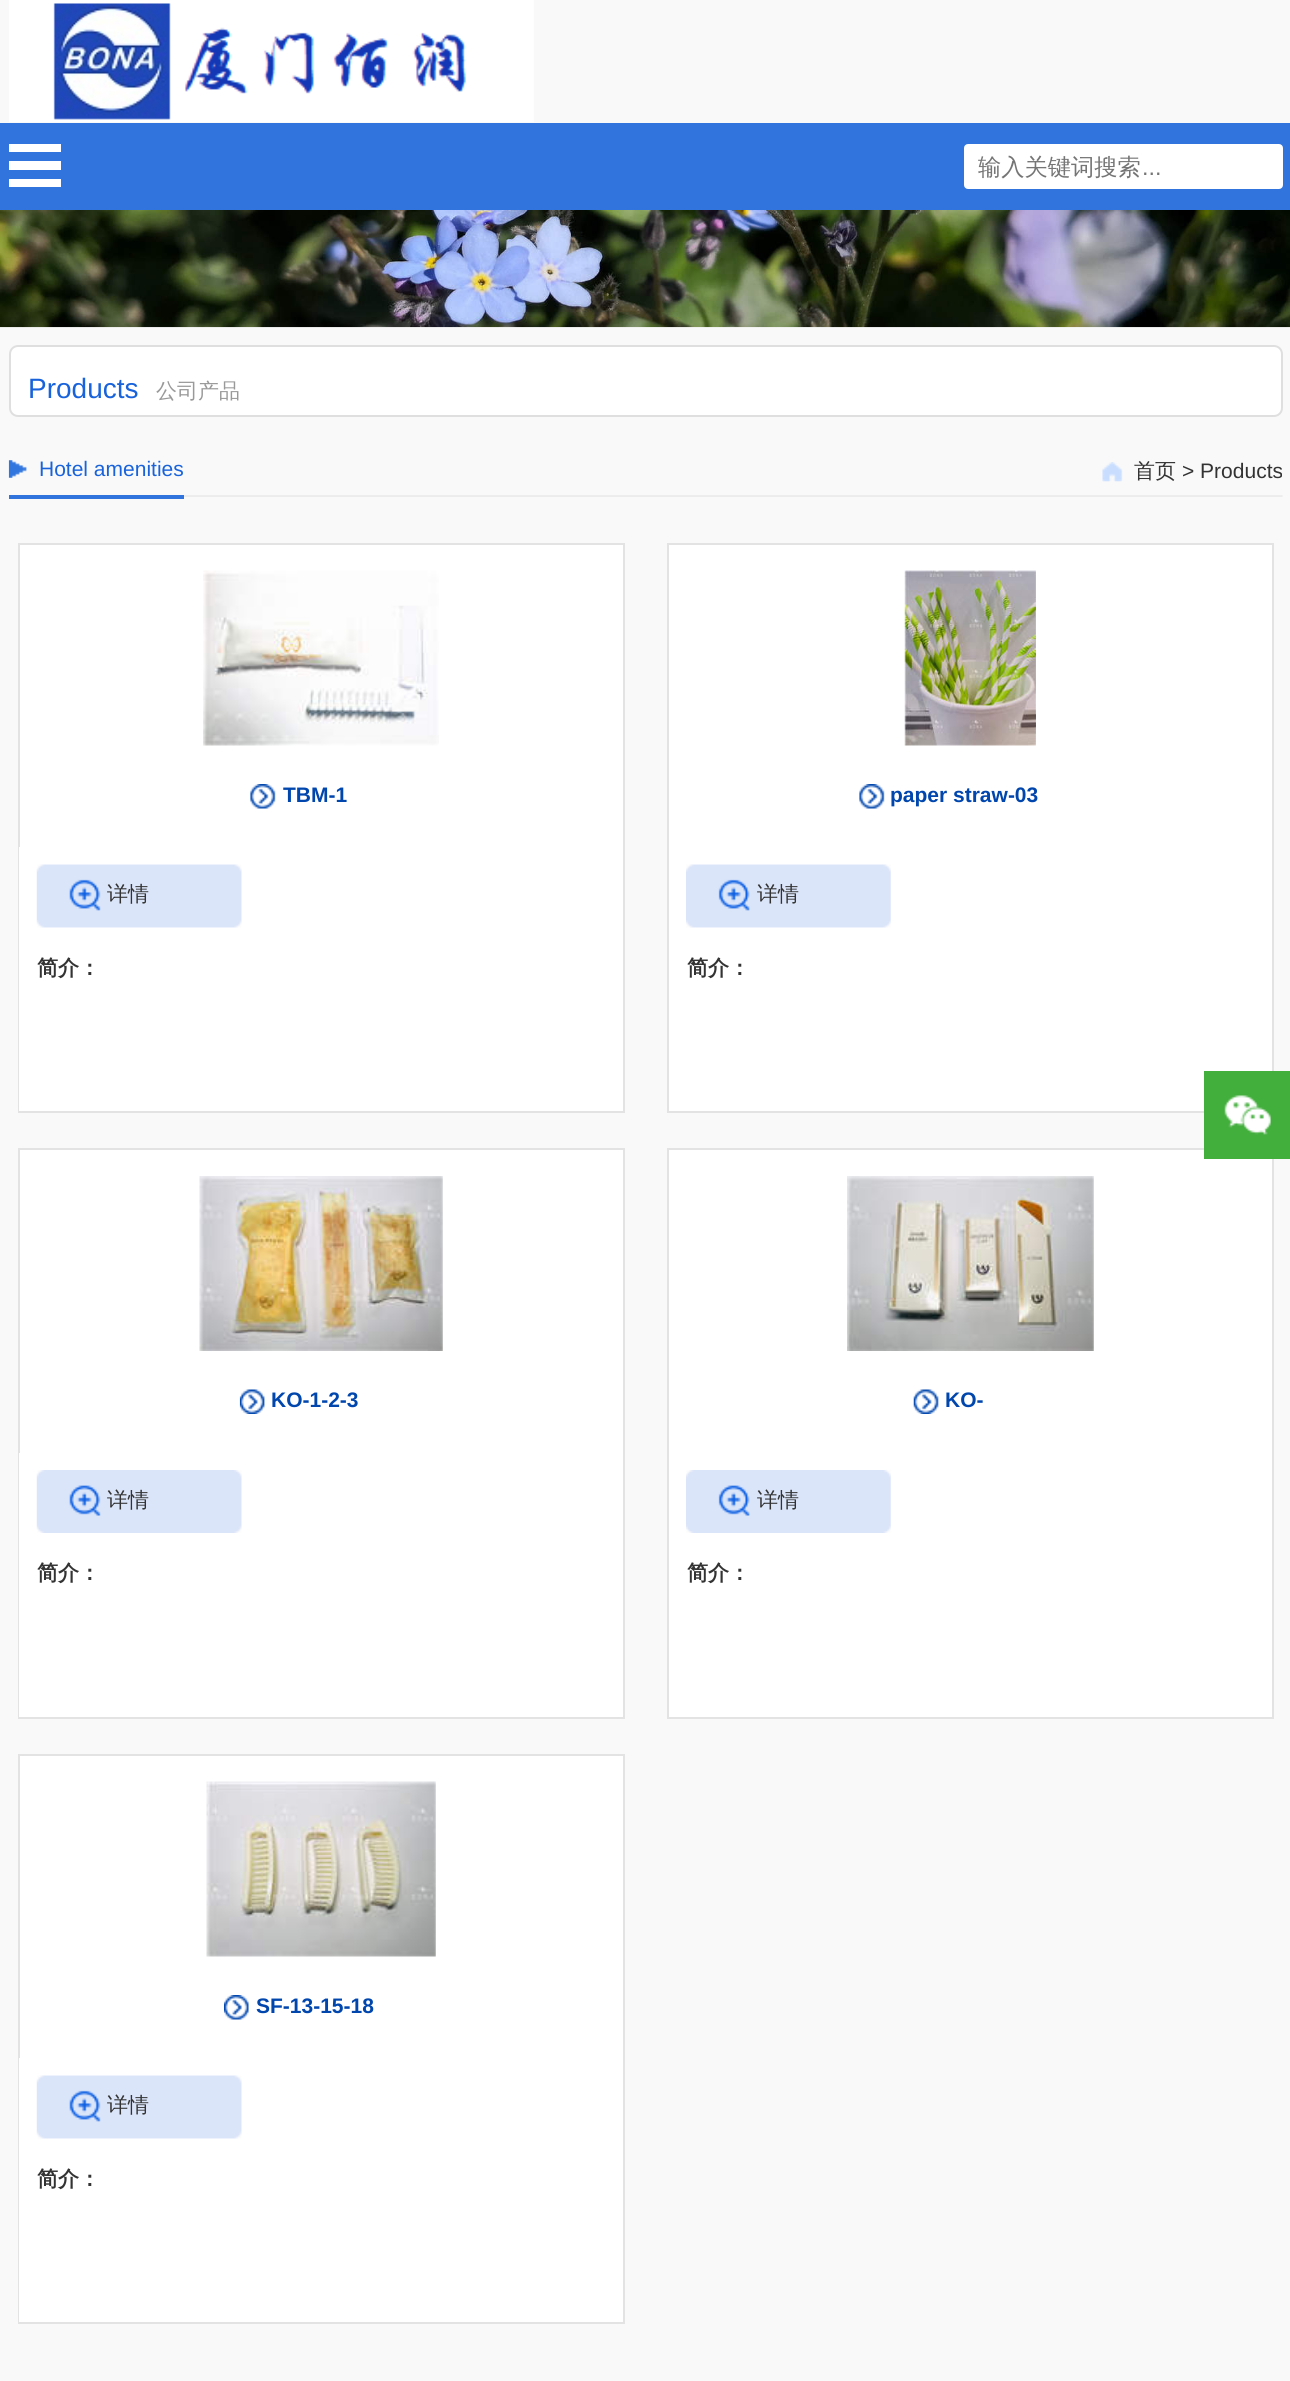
#include <cairo/cairo.h>
#include <math.h>
#include <stddef.h>

static cairo_t *cr;

static void use_color(int r, int g, int b) {
  cairo_set_source_rgb(cr, r / 255.0, g / 255.0, b / 255.0);
}

static void text(double x, double y, const char *s, const char *family, double size, int italic, int bold, int r, int g, int b) {
  cairo_select_font_face(cr, family, italic ? CAIRO_FONT_SLANT_ITALIC : CAIRO_FONT_SLANT_NORMAL,
    bold ? CAIRO_FONT_WEIGHT_BOLD : CAIRO_FONT_WEIGHT_NORMAL);
  cairo_set_font_size(cr, size);
  use_color(r, g, b);
  cairo_move_to(cr, x, y);
  cairo_show_text(cr, s);
}

static void box(double x, double y, double w, double h, int r, int g, int b) {
  use_color(r, g, b);
  cairo_rectangle(cr, x, y, w, h);
  cairo_fill(cr);
}

static void round_rect(double x, double y, double w, double h, double r) {
  cairo_new_sub_path(cr);
  cairo_arc(cr, x + w - r, y + h - r, r, 0, M_PI / 2);
  cairo_arc(cr, x + r, y + h - r, r, M_PI / 2, M_PI);
  cairo_arc(cr, x + r, y + r, r, M_PI, 1.5 * M_PI);
  cairo_arc(cr, x + w - r, y + r, r, 1.5 * M_PI, 2 * M_PI);
  cairo_close_path(cr);
}

static void picture(const char *path, double x, double y, double w, double h) {
  cairo_surface_t *image = cairo_image_surface_create_from_png(path);
  cairo_save(cr);
  cairo_set_source_surface(cr, image, x, y);
  cairo_rectangle(cr, x, y, w, h);
  cairo_fill(cr);
  cairo_restore(cr);
  cairo_surface_destroy(image);
}

static void draw(void) {
  use_color(249, 249, 249);
  cairo_paint(cr);
  picture("img_01.png", 9, 0, 525, 122);
  use_color(255, 255, 255);
  cairo_rectangle(cr, 668, 544, 605, 568);
  cairo_fill_preserve(cr);
  use_color(227, 227, 227);
  cairo_stroke(cr);
  use_color(255, 255, 255);
  cairo_rectangle(cr, 668, 1149, 605, 569);
  cairo_fill_preserve(cr);
  use_color(227, 227, 227);
  cairo_stroke(cr);
  box(1204, 1071, 86, 88, 66, 174, 60);
  picture("img_02.png", 1224, 1095, 47, 40);
  box(0, 123, 1290, 87, 49, 116, 221);
  box(9, 144, 52, 8, 255, 255, 255);
  box(9, 161, 52, 9, 255, 255, 255);
  box(9, 179, 52, 8, 255, 255, 255);
  round_rect(965, 145, 317, 43, 3);
  cairo_fill_preserve(cr);
  cairo_stroke(cr);
  picture("img_03.png", 0, 210, 1290, 118);
  round_rect(10, 346, 1272, 70, 8);
  cairo_fill_preserve(cr);
  use_color(223, 223, 223);
  cairo_stroke(cr);
  picture("img_04.png", 184, 495, 1099, 2);
  picture("img_05.png", 8, 460, 19, 18);
  box(9, 495, 175, 4, 49, 116, 221);
  picture("img_06.png", 1102, 462, 21, 20);
  box(20, 545, 603, 302, 255, 255, 255);
  cairo_rectangle(cr, 19, 544, 605, 568);
  use_color(227, 227, 227);
  cairo_stroke(cr);
  picture("img_07.png", 203, 570, 236, 176);
  picture("img_08.png", 250, 784, 26, 25);
  box(19, 847, 604, 264, 255, 255, 255);
  picture("img_09.png", 36, 864, 206, 64);
  picture("img_10.png", 904, 570, 132, 176);
  picture("img_08.png", 859, 784, 26, 25);
  picture("img_11.png", 686, 864, 205, 64);
  box(20, 1150, 603, 303, 255, 255, 255);
  cairo_rectangle(cr, 19, 1149, 605, 569);
  use_color(227, 227, 227);
  cairo_stroke(cr);
  picture("img_12.png", 199, 1176, 244, 175);
  picture("img_13.png", 239, 1389, 26, 25);
  box(19, 1453, 604, 264, 255, 255, 255);
  picture("img_14.png", 36, 1470, 206, 63);
  picture("img_15.png", 847, 1176, 247, 175);
  picture("img_16.png", 913, 1389, 26, 25);
  picture("img_17.png", 686, 1470, 205, 63);
  box(20, 1756, 603, 302, 255, 255, 255);
  cairo_rectangle(cr, 19, 1755, 605, 568);
  use_color(227, 227, 227);
  cairo_stroke(cr);
  picture("img_18.png", 206, 1781, 230, 176);
  picture("img_19.png", 224, 1995, 25, 25);
  box(19, 2058, 604, 264, 255, 255, 255);
  picture("img_09.png", 36, 2075, 206, 64);
  text(978, 175, "输入关键词搜索", "WenQuanYi Zen Hei Medium", 23.25, 0, 0, 117, 117, 117);
  text(1142, 175, "...", "Liberation Sans", 23.25, 0, 0, 117, 117, 117);
  text(28, 398, "Products", "Liberation Sans", 28, 0, 0, 24, 99, 219);
  text(156, 398, "公司产品", "WenQuanYi Zen Hei Medium", 21, 0, 0, 153, 153, 153);
  text(39, 476, "Hotel amenities", "Liberation Sans", 21, 0, 0, 24, 99, 219);
  text(1134, 478, "首页", "WenQuanYi Zen Hei Medium", 21, 0, 0, 51, 51, 51);
  text(1182, 478, "> Products", "Liberation Sans", 21, 0, 0, 51, 51, 51);
  text(283, 802, "TBM-1", "Liberation Sans", 21, 0, 1, 0, 70, 173);
  text(107, 901, "详情", "WenQuanYi Zen Hei Medium", 21, 0, 0, 51, 51, 51);
  text(37, 975, "简介：", "WenQuanYi Zen Hei", 21, 0, 1, 51, 51, 51);
  text(890, 802, "paper straw-03", "Liberation Sans", 21, 0, 1, 0, 70, 173);
  text(757, 901, "详情", "WenQuanYi Zen Hei Medium", 21, 0, 0, 51, 51, 51);
  text(687, 975, "简介：", "WenQuanYi Zen Hei", 21, 0, 1, 51, 51, 51);
  text(271, 1407, "KO-1-2-3", "Liberation Sans", 21, 0, 1, 0, 70, 173);
  text(107, 1507, "详情", "WenQuanYi Zen Hei Medium", 21, 0, 0, 51, 51, 51);
  text(37, 1580, "简介：", "WenQuanYi Zen Hei", 21, 0, 1, 51, 51, 51);
  text(945, 1407, "KO-", "Liberation Sans", 21, 0, 1, 0, 70, 173);
  text(757, 1507, "详情", "WenQuanYi Zen Hei Medium", 21, 0, 0, 51, 51, 51);
  text(687, 1580, "简介：", "WenQuanYi Zen Hei", 21, 0, 1, 51, 51, 51);
  text(256, 2013, "SF-13-15-18", "Liberation Sans", 21, 0, 1, 0, 70, 173);
  text(107, 2112, "详情", "WenQuanYi Zen Hei Medium", 21, 0, 0, 51, 51, 51);
  text(37, 2186, "简介：", "WenQuanYi Zen Hei", 21, 0, 1, 51, 51, 51);
}

int main(void) {
  cairo_surface_t *surface = cairo_image_surface_create(CAIRO_FORMAT_RGB24, 1290, 2381);
  cr = cairo_create(surface);
  cairo_font_options_t *options = cairo_font_options_create();
  cairo_font_options_set_hint_metrics(options, CAIRO_HINT_METRICS_OFF);
  cairo_font_options_set_hint_style(options, CAIRO_HINT_STYLE_NONE);
  cairo_set_font_options(cr, options);
  cairo_set_miter_limit(cr, 4);
  draw();
  cairo_surface_write_to_png(surface, "out.png");
  cairo_font_options_destroy(options);
  cairo_destroy(cr);
  cairo_surface_destroy(surface);
  return 0;
}
